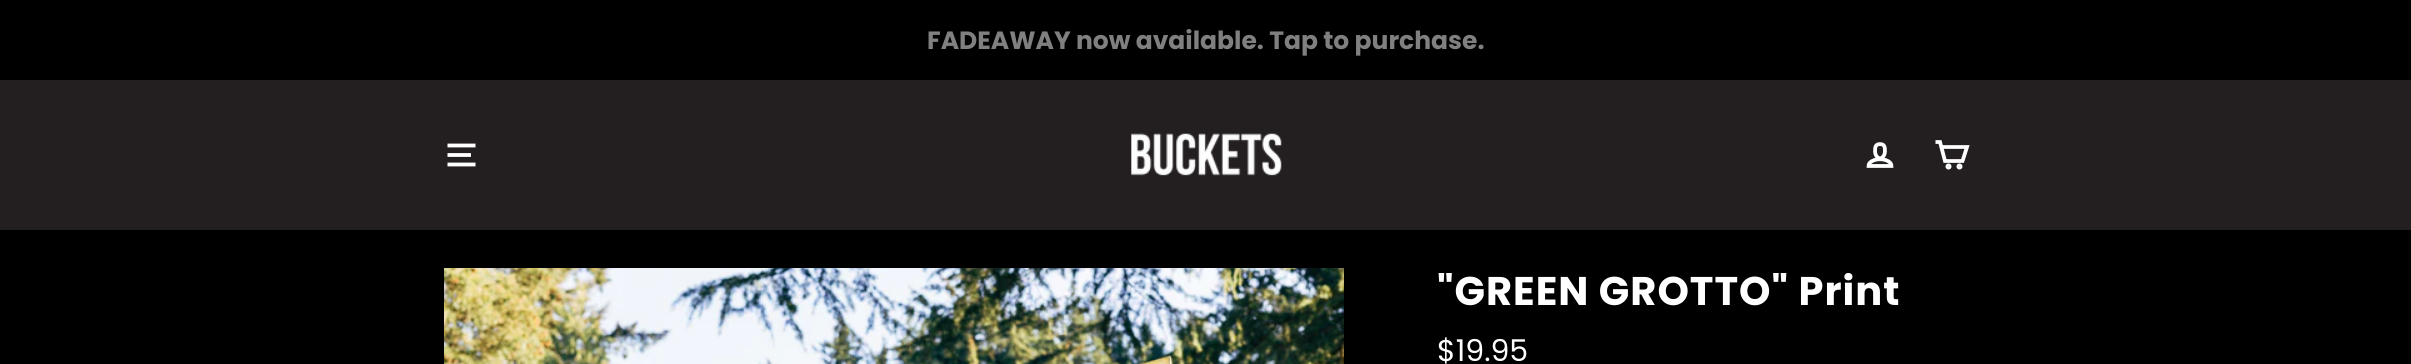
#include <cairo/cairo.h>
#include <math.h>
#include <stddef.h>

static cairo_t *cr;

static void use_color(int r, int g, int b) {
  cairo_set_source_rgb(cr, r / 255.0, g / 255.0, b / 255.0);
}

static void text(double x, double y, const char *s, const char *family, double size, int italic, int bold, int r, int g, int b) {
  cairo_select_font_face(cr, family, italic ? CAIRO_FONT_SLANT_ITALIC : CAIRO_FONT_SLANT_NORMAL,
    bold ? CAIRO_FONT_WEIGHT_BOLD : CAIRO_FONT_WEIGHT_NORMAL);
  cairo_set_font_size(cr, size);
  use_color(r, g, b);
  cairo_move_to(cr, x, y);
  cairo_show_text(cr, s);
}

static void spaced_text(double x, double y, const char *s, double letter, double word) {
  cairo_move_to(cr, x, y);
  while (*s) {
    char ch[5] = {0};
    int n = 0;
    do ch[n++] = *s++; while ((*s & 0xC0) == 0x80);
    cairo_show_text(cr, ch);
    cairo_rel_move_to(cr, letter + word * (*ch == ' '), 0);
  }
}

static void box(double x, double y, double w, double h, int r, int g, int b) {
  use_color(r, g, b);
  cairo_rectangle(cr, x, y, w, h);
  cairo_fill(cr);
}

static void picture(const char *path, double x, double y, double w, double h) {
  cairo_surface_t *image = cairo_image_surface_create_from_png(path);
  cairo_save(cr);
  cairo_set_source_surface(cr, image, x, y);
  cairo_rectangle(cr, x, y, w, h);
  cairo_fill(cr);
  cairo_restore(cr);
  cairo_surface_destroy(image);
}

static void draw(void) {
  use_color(0, 0, 0);
  cairo_paint(cr);
  box(0, 80, 2411, 150, 35, 31, 32);
  cairo_new_path(cr);
  cairo_move_to(cr, 447.5, 145.5);
  cairo_line_to(cr, 475.5, 145.5);
  cairo_move_to(cr, 447.5, 155);
  cairo_line_to(cr, 471, 155);
  cairo_move_to(cr, 447.5, 164.5);
  cairo_line_to(cr, 475.5, 164.5);
  use_color(255, 255, 255);
  cairo_set_line_width(cr, 3.8);
  cairo_stroke(cr);
  picture("img_01.png", 1131, 133, 151, 43);
  picture("img_02.png", 1866, 142, 28, 26);
  cairo_new_path(cr);
  cairo_move_to(cr, 1941.5, 147);
  cairo_line_to(cr, 1967, 147);
  cairo_line_to(cr, 1962.5, 161);
  cairo_line_to(cr, 1945, 161);
  cairo_line_to(cr, 1940, 142);
  cairo_line_to(cr, 1935.5, 142);
  cairo_stroke(cr);
  cairo_arc(cr, 1948.5, 166.5, 1.1, 0, 2 * M_PI);
  cairo_fill_preserve(cr);
  cairo_stroke(cr);
  cairo_arc(cr, 1959.5, 166.5, 1.1, 0, 2 * M_PI);
  cairo_fill_preserve(cr);
  cairo_stroke(cr);
  picture("img_03.png", 444, 268, 900, 96);
  text(927, 49, "FADEAWAY now available. Tap to purchase.", "Poppins", 25, 0, 1, 128, 128, 128);
  cairo_set_font_size(cr, 40);
  use_color(255, 255, 255);
  spaced_text(1437, 305, "\"GREEN GROTTO\" Print", 1, 0);
  text(1437, 361, "$19.95", "Poppins", 30, 0, 0, 255, 255, 255);
}

int main(void) {
  cairo_surface_t *surface = cairo_image_surface_create(CAIRO_FORMAT_RGB24, 2411, 364);
  cr = cairo_create(surface);
  cairo_font_options_t *options = cairo_font_options_create();
  cairo_font_options_set_hint_metrics(options, CAIRO_HINT_METRICS_OFF);
  cairo_font_options_set_hint_style(options, CAIRO_HINT_STYLE_NONE);
  cairo_set_font_options(cr, options);
  cairo_set_miter_limit(cr, 4);
  draw();
  cairo_surface_write_to_png(surface, "out.png");
  cairo_font_options_destroy(options);
  cairo_destroy(cr);
  cairo_surface_destroy(surface);
  return 0;
}
